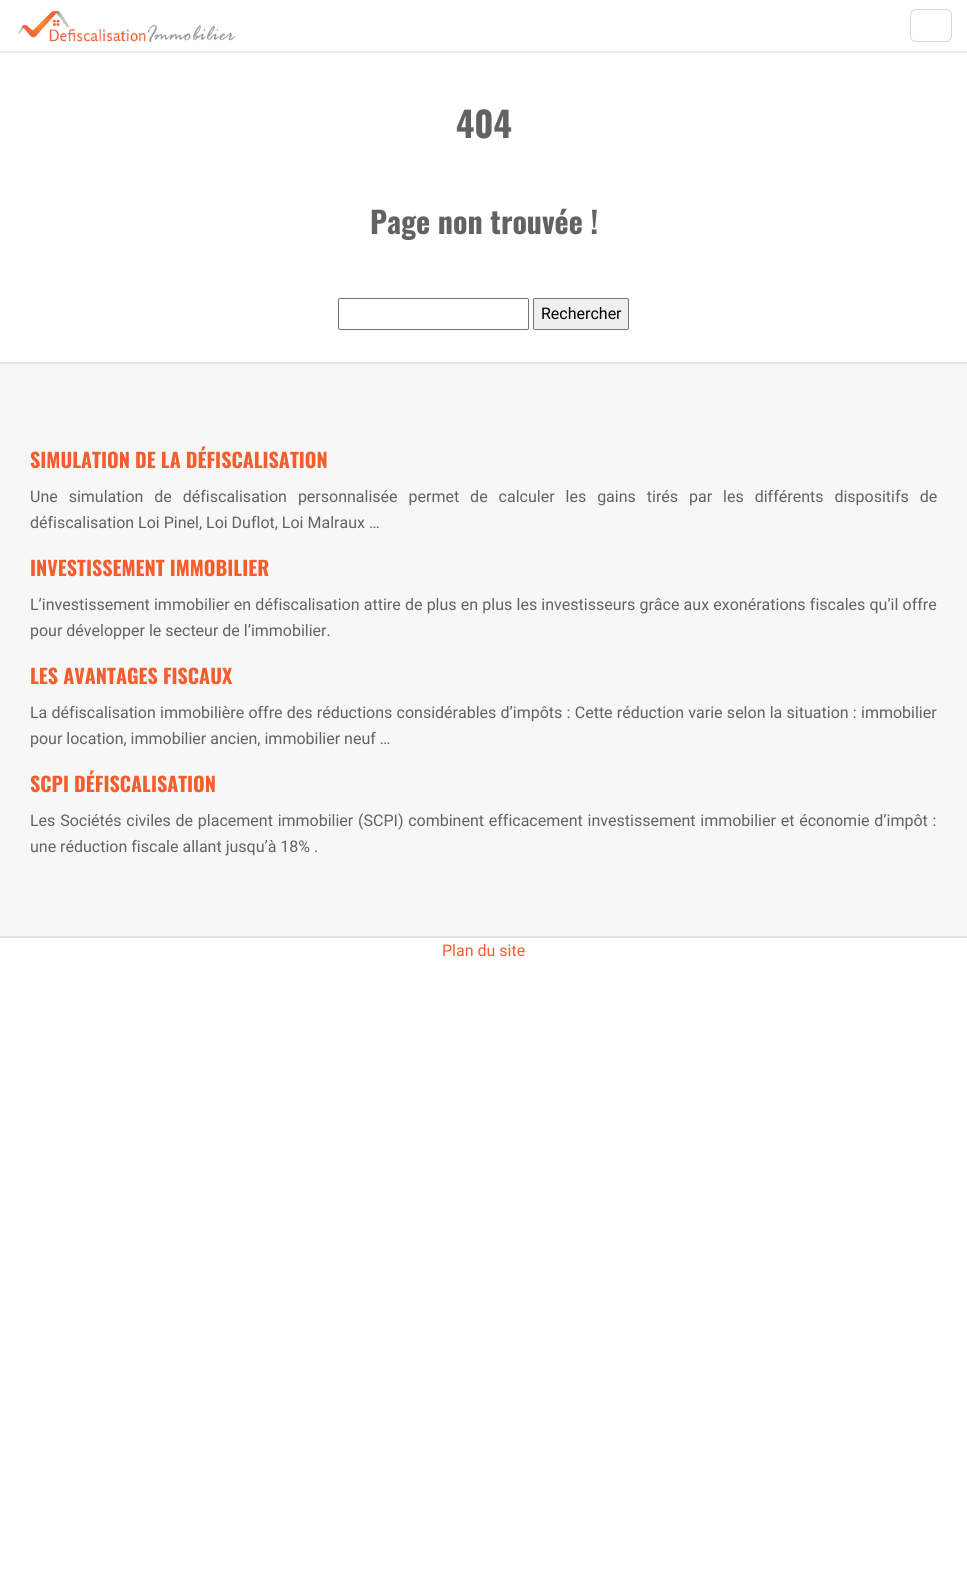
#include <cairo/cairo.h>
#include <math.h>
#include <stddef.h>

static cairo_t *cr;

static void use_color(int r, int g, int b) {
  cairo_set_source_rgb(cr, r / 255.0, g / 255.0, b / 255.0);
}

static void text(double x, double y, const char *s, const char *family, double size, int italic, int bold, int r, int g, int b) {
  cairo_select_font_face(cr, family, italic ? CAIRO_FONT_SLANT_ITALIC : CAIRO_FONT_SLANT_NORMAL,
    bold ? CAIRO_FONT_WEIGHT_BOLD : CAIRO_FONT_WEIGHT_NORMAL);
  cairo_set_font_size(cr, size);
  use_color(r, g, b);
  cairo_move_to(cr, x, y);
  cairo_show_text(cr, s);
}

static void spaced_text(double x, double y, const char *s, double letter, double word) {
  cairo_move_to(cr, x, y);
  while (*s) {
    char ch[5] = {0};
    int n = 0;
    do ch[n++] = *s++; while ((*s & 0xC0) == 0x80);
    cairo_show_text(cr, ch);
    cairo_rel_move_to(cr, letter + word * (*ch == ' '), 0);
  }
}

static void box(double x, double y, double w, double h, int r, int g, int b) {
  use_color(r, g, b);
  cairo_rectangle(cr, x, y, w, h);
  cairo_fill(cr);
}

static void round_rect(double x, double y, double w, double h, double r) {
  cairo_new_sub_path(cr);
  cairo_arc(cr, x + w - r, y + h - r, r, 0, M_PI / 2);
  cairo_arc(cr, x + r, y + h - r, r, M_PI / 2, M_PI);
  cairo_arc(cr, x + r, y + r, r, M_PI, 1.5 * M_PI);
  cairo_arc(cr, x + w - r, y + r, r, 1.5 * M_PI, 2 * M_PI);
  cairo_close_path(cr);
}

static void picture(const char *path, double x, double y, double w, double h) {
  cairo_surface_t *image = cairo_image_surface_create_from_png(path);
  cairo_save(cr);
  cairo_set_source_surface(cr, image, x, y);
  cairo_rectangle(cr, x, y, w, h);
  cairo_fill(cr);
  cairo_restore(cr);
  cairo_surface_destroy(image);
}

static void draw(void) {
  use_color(255, 255, 255);
  cairo_paint(cr);
  box(0, 51, 967, 2, 237, 237, 237);
  picture("img_01.png", 18, 10, 217, 33);
  round_rect(910.5, 9.5, 41, 32, 5.5);
  use_color(217, 217, 217);
  cairo_set_line_width(cr, 1);
  cairo_stroke(cr);
  round_rect(338.5, 298.5, 190, 31, 1.5);
  use_color(118, 118, 118);
  cairo_stroke(cr);
  use_color(239, 239, 239);
  round_rect(533.5, 298.5, 95, 31, 1.5);
  cairo_fill_preserve(cr);
  use_color(118, 118, 118);
  cairo_stroke(cr);
  box(0, 364, 967, 572, 247, 247, 247);
  box(0, 362, 967, 2, 228, 228, 228);
  box(0, 936, 967, 2, 228, 228, 228);
  text(456, 138, "404", "Oswald", 35, 0, 1, 98, 98, 98);
  text(370, 234, "Page non trouvée !", "Oswald", 30, 0, 1, 98, 98, 98);
  text(541, 319, "Rechercher", "Roboto", 16, 0, 0, 0, 0, 0);
  text(30, 468, "SIMULATION DE LA DÉFISCALISATION", "Oswald", 20, 0, 1, 245, 93, 45);
  cairo_select_font_face(cr, "Roboto", CAIRO_FONT_SLANT_NORMAL, CAIRO_FONT_WEIGHT_NORMAL);
  cairo_set_font_size(cr, 16);
  use_color(98, 98, 98);
  spaced_text(30, 502, "Une simulation de défiscalisation personnalisée permet de calculer les gains tirés par les différents dispositifs de", 0, 7);
  text(30, 528, "défiscalisation Loi Pinel, Loi Duflot, Loi Malraux …", "Roboto", 16, 0, 0, 98, 98, 98);
  text(30, 576, "INVESTISSEMENT IMMOBILIER", "Oswald", 20, 0, 1, 245, 93, 45);
  cairo_select_font_face(cr, "Roboto", CAIRO_FONT_SLANT_NORMAL, CAIRO_FONT_WEIGHT_NORMAL);
  cairo_set_font_size(cr, 16);
  use_color(98, 98, 98);
  spaced_text(30, 610, "L’investissement immobilier en défiscalisation attire de plus en plus les investisseurs grâce aux exonérations fiscales qu’il offre", 0, 0.25);
  text(30, 636, "pour développer le secteur de l’immobilier.", "Roboto", 16, 0, 0, 98, 98, 98);
  text(30, 684, "LES AVANTAGES FISCAUX", "Oswald", 20, 0, 1, 245, 93, 45);
  cairo_select_font_face(cr, "Roboto", CAIRO_FONT_SLANT_NORMAL, CAIRO_FONT_WEIGHT_NORMAL);
  cairo_set_font_size(cr, 16);
  use_color(98, 98, 98);
  spaced_text(30, 718, "La défiscalisation immobilière offre des réductions considérables d’impôts : Cette réduction varie selon la situation : immobilier", 0, 0.3);
  text(30, 744, "pour location, immobilier ancien, immobilier neuf …", "Roboto", 16, 0, 0, 98, 98, 98);
  text(30, 792, "SCPI DÉFISCALISATION", "Oswald", 20, 0, 1, 245, 93, 45);
  cairo_select_font_face(cr, "Roboto", CAIRO_FONT_SLANT_NORMAL, CAIRO_FONT_WEIGHT_NORMAL);
  cairo_set_font_size(cr, 16);
  use_color(98, 98, 98);
  spaced_text(30, 826, "Les Sociétés civiles de placement immobilier (SCPI) combinent efficacement investissement immobilier et économie d’impôt :", 0, 0.8);
  text(30, 852, "une réduction fiscale allant jusqu’à 18% .", "Roboto", 16, 0, 0, 98, 98, 98);
  text(442, 956, "Plan du site", "Roboto", 16, 0, 0, 245, 93, 45);
}

int main(void) {
  cairo_surface_t *surface = cairo_image_surface_create(CAIRO_FORMAT_RGB24, 967, 1589);
  cr = cairo_create(surface);
  cairo_font_options_t *options = cairo_font_options_create();
  cairo_font_options_set_hint_metrics(options, CAIRO_HINT_METRICS_OFF);
  cairo_font_options_set_hint_style(options, CAIRO_HINT_STYLE_NONE);
  cairo_set_font_options(cr, options);
  cairo_set_miter_limit(cr, 4);
  draw();
  cairo_surface_write_to_png(surface, "out.png");
  cairo_font_options_destroy(options);
  cairo_destroy(cr);
  cairo_surface_destroy(surface);
  return 0;
}
